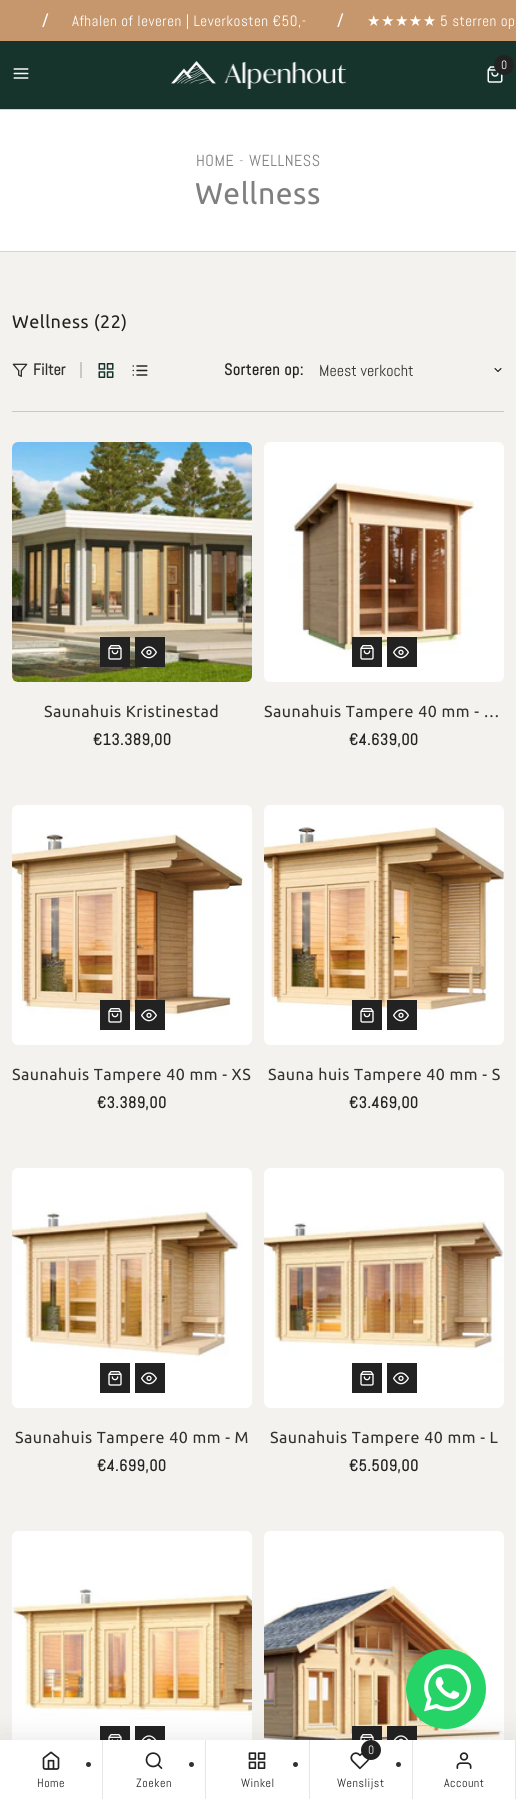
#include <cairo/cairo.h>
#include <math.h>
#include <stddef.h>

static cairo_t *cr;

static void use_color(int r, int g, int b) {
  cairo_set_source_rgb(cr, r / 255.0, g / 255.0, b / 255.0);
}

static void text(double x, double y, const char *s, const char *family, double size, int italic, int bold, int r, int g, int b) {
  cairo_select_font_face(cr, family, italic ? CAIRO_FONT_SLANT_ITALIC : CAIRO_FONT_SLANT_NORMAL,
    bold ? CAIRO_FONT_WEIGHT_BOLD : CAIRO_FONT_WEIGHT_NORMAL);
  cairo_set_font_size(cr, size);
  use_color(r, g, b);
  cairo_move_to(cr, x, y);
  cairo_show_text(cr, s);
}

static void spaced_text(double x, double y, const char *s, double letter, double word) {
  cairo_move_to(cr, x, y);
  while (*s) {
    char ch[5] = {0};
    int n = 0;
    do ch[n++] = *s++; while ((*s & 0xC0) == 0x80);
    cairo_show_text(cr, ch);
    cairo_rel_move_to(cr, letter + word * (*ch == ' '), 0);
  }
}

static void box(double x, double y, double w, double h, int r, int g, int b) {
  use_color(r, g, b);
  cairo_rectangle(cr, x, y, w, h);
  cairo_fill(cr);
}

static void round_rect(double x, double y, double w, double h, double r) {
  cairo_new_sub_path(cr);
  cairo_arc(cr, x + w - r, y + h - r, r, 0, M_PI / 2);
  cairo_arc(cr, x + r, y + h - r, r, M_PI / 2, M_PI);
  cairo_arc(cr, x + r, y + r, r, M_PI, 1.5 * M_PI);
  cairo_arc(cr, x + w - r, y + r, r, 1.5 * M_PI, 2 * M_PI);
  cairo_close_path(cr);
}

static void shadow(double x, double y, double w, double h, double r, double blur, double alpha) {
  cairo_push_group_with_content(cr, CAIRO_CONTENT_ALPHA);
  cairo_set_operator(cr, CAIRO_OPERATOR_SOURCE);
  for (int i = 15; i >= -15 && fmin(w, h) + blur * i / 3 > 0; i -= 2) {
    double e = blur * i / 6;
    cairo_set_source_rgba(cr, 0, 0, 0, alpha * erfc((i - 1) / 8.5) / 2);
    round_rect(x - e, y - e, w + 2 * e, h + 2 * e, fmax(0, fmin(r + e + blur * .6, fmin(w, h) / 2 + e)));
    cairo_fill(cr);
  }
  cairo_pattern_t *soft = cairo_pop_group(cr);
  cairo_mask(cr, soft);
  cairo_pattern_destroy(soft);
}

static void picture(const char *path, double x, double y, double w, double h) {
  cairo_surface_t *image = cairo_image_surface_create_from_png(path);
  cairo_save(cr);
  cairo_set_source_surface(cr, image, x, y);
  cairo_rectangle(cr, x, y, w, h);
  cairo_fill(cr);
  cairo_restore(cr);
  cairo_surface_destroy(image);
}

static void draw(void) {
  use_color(255, 255, 255);
  cairo_paint(cr);
  box(0, 0, 516, 41, 198, 150, 108);
  box(0, 41, 516, 68, 22, 51, 44);
  picture("img_01.png", 13, 68, 16, 11);
  picture("img_02.png", 171, 61, 175, 28);
  picture("img_03.png", 487, 66, 16, 17);
  use_color(34, 34, 34);
  cairo_arc(cr, 504, 65, 10, 0, 2 * M_PI);
  cairo_fill(cr);
  box(0, 252, 516, 1488, 243, 242, 238);
  picture("img_19.png", 264, 1531, 240, 209);
  box(387, 1726, 30, 14, 34, 34, 34);
  picture("img_16.png", 12, 1531, 240, 209);
  box(100, 1726, 30, 14, 34, 34, 34);
  picture("img_17.png", 108, 1734, 14, 6);
  box(135, 1726, 30, 14, 34, 34, 34);
  picture("img_18.png", 141, 1735, 16, 5);
  box(352, 1726, 30, 14, 34, 34, 34);
  picture("img_17.png", 360, 1734, 14, 6);
  picture("img_18.png", 393, 1735, 16, 5);
  use_color(0, 0, 0);
  shadow(0, 1740, 516, 59, 0, 15, 0.1);
  use_color(37, 211, 102);
  cairo_arc(cr, 446, 1689, 40, 0, 2 * M_PI);
  cairo_fill(cr);
  picture("img_04.png", 424, 1664, 47, 48);
  box(0, 109, 516, 1, 211, 211, 211);
  box(0, 251, 516, 1, 211, 211, 211);
  box(12, 411, 492, 1, 201, 200, 197);
  box(80, 362, 2, 16, 201, 200, 197);
  picture("img_05.png", 12, 363, 16, 14);
  picture("img_06.png", 98, 363, 16, 15);
  picture("img_07.png", 132, 365, 16, 11);
  cairo_new_path(cr);
  cairo_move_to(cr, 495, 368.5);
  cairo_line_to(cr, 498, 371.5);
  cairo_line_to(cr, 501, 368.5);
  use_color(0, 0, 0);
  cairo_set_line_width(cr, 1);
  cairo_set_line_cap(cr, CAIRO_LINE_CAP_ROUND);
  cairo_set_line_join(cr, CAIRO_LINE_JOIN_ROUND);
  cairo_stroke(cr);
  picture("img_08.png", 12, 442, 240, 240);
  box(100, 637, 30, 30, 34, 34, 34);
  picture("img_09.png", 108, 645, 14, 15);
  box(135, 637, 30, 30, 34, 34, 34);
  picture("img_10.png", 141, 646, 16, 13);
  picture("img_11.png", 264, 442, 240, 240);
  box(352, 637, 30, 30, 34, 34, 34);
  picture("img_09.png", 360, 645, 14, 15);
  box(387, 637, 30, 30, 34, 34, 34);
  picture("img_10.png", 393, 646, 16, 13);
  picture("img_12.png", 12, 805, 240, 240);
  box(100, 1000, 30, 30, 34, 34, 34);
  picture("img_09.png", 108, 1008, 14, 15);
  box(135, 1000, 30, 30, 34, 34, 34);
  picture("img_10.png", 141, 1009, 16, 13);
  picture("img_13.png", 264, 805, 240, 240);
  box(352, 1000, 30, 30, 34, 34, 34);
  picture("img_09.png", 360, 1008, 14, 15);
  box(387, 1000, 30, 30, 34, 34, 34);
  picture("img_10.png", 393, 1009, 16, 13);
  picture("img_14.png", 12, 1168, 240, 240);
  box(100, 1363, 30, 30, 34, 34, 34);
  picture("img_09.png", 108, 1371, 14, 15);
  box(135, 1363, 30, 30, 34, 34, 34);
  picture("img_10.png", 141, 1372, 16, 13);
  picture("img_15.png", 264, 1168, 240, 240);
  box(352, 1363, 30, 30, 34, 34, 34);
  picture("img_09.png", 360, 1371, 14, 15);
  box(387, 1363, 30, 30, 34, 34, 34);
  picture("img_10.png", 393, 1372, 16, 13);
  box(0, 1740, 515, 59, 255, 255, 255);
  box(102, 1740, 1, 59, 230, 230, 230);
  picture("img_20.png", 42, 1751, 18, 19);
  box(205, 1740, 1, 59, 230, 230, 230);
  use_color(49, 49, 49);
  cairo_arc(cr, 88.5, 1764.5, 2.5, 0, 2 * M_PI);
  cairo_fill(cr);
  picture("img_21.png", 145, 1752, 18, 17);
  box(309, 1740, 1, 59, 230, 230, 230);
  use_color(49, 49, 49);
  cairo_arc(cr, 191.5, 1764.5, 2.5, 0, 2 * M_PI);
  cairo_fill(cr);
  picture("img_22.png", 248, 1752, 18, 17);
  box(412, 1740, 1, 59, 230, 230, 230);
  use_color(49, 49, 49);
  cairo_arc(cr, 295.5, 1764.5, 2.5, 0, 2 * M_PI);
  cairo_fill(cr);
  picture("img_23.png", 350, 1752, 20, 18);
  use_color(34, 34, 34);
  cairo_arc(cr, 371, 1750, 10, 0, 2 * M_PI);
  cairo_fill(cr);
  box(515, 1740, 1, 59, 230, 230, 230);
  use_color(49, 49, 49);
  cairo_arc(cr, 398.5, 1764.5, 2.5, 0, 2 * M_PI);
  cairo_fill(cr);
  picture("img_24.png", 456, 1752, 16, 17);
  cairo_select_font_face(cr, "Abel", CAIRO_FONT_SLANT_NORMAL, CAIRO_FONT_WEIGHT_BOLD);
  cairo_set_font_size(cr, 16);
  use_color(255, 255, 255);
  spaced_text(42, 26, "/", 0.5, 0);
  cairo_select_font_face(cr, "Abel", CAIRO_FONT_SLANT_NORMAL, CAIRO_FONT_WEIGHT_NORMAL);
  cairo_set_font_size(cr, 15);
  spaced_text(72, 26, "Afhalen of leveren | Leverkosten €50,-", 0.5, 0);
  cairo_select_font_face(cr, "Abel", CAIRO_FONT_SLANT_NORMAL, CAIRO_FONT_WEIGHT_BOLD);
  cairo_set_font_size(cr, 16);
  spaced_text(337, 26, "/", 0.5, 0);
  cairo_select_font_face(cr, "DejaVu Sans", CAIRO_FONT_SLANT_NORMAL, CAIRO_FONT_WEIGHT_NORMAL);
  cairo_set_font_size(cr, 15);
  spaced_text(367, 26, "★★★★★", 0.5, 0);
  cairo_select_font_face(cr, "Abel", CAIRO_FONT_SLANT_NORMAL, CAIRO_FONT_WEIGHT_NORMAL);
  spaced_text(440, 26, "5 sterren op", 0.5, 0);
  cairo_set_font_size(cr, 12);
  spaced_text(501, 69, "0", 0.5, 0);
  cairo_set_font_size(cr, 16);
  use_color(127, 127, 127);
  spaced_text(196, 166, "HOME", 0.5, 0);
  use_color(178, 178, 178);
  spaced_text(239, 166, "-", 0.5, 0);
  use_color(127, 127, 127);
  spaced_text(249, 166, "WELLNESS", 0.5, 0);
  cairo_select_font_face(cr, "Ubuntu", CAIRO_FONT_SLANT_NORMAL, CAIRO_FONT_WEIGHT_NORMAL);
  cairo_set_font_size(cr, 30);
  spaced_text(195, 204, "Wellness", 0.5, 0);
  cairo_set_font_size(cr, 18);
  use_color(34, 34, 34);
  spaced_text(12, 328, "Wellness (22)", 0.5, 0);
  text(33, 375, "Filter", "Abel", 16, 0, 1, 49, 49, 49);
  use_color(34, 34, 34);
  spaced_text(224, 375, "Sorteren op:", 0.5, 0);
  text(319, 376, "Meest verkocht", "Abel", 16, 0, 0, 49, 49, 49);
  cairo_select_font_face(cr, "Ubuntu", CAIRO_FONT_SLANT_NORMAL, CAIRO_FONT_WEIGHT_NORMAL);
  spaced_text(44, 717, "Saunahuis Kristinestad", 0.5, 0);
  cairo_select_font_face(cr, "Abel", CAIRO_FONT_SLANT_NORMAL, CAIRO_FONT_WEIGHT_BOLD);
  use_color(34, 34, 34);
  spaced_text(93, 745, "€13.389,00", 0.5, 0);
  cairo_select_font_face(cr, "Ubuntu", CAIRO_FONT_SLANT_NORMAL, CAIRO_FONT_WEIGHT_NORMAL);
  use_color(49, 49, 49);
  spaced_text(264, 717, "Saunahuis Tampere 40 mm - …", 0.5, 0);
  cairo_select_font_face(cr, "Abel", CAIRO_FONT_SLANT_NORMAL, CAIRO_FONT_WEIGHT_BOLD);
  use_color(34, 34, 34);
  spaced_text(349, 745, "€4.639,00", 0.5, 0);
  cairo_select_font_face(cr, "Ubuntu", CAIRO_FONT_SLANT_NORMAL, CAIRO_FONT_WEIGHT_NORMAL);
  use_color(49, 49, 49);
  spaced_text(12, 1080, "Saunahuis Tampere 40 mm - XS", 0.5, 0);
  cairo_select_font_face(cr, "Abel", CAIRO_FONT_SLANT_NORMAL, CAIRO_FONT_WEIGHT_BOLD);
  use_color(34, 34, 34);
  spaced_text(97, 1108, "€3.389,00", 0.5, 0);
  cairo_select_font_face(cr, "Ubuntu", CAIRO_FONT_SLANT_NORMAL, CAIRO_FONT_WEIGHT_NORMAL);
  use_color(49, 49, 49);
  spaced_text(268, 1080, "Sauna huis Tampere 40 mm - S", 0.5, 0);
  cairo_select_font_face(cr, "Abel", CAIRO_FONT_SLANT_NORMAL, CAIRO_FONT_WEIGHT_BOLD);
  use_color(34, 34, 34);
  spaced_text(349, 1108, "€3.469,00", 0.5, 0);
  cairo_select_font_face(cr, "Ubuntu", CAIRO_FONT_SLANT_NORMAL, CAIRO_FONT_WEIGHT_NORMAL);
  use_color(49, 49, 49);
  spaced_text(15, 1443, "Saunahuis Tampere 40 mm - M", 0.5, 0);
  cairo_select_font_face(cr, "Abel", CAIRO_FONT_SLANT_NORMAL, CAIRO_FONT_WEIGHT_BOLD);
  use_color(34, 34, 34);
  spaced_text(97, 1471, "€4.699,00", 0.5, 0);
  cairo_select_font_face(cr, "Ubuntu", CAIRO_FONT_SLANT_NORMAL, CAIRO_FONT_WEIGHT_NORMAL);
  use_color(49, 49, 49);
  spaced_text(270, 1443, "Saunahuis Tampere 40 mm - L", 0.5, 0);
  cairo_select_font_face(cr, "Abel", CAIRO_FONT_SLANT_NORMAL, CAIRO_FONT_WEIGHT_BOLD);
  use_color(34, 34, 34);
  spaced_text(349, 1471, "€5.509,00", 0.5, 0);
  cairo_select_font_face(cr, "Abel", CAIRO_FONT_SLANT_NORMAL, CAIRO_FONT_WEIGHT_NORMAL);
  cairo_set_font_size(cr, 12);
  spaced_text(37, 1787, "Home", 0.5, 0);
  spaced_text(136, 1787, "Zoeken", 0.5, 0);
  spaced_text(241, 1787, "Winkel", 0.5, 0);
  use_color(255, 255, 255);
  spaced_text(368, 1754, "0", 0.5, 0);
  use_color(34, 34, 34);
  spaced_text(337, 1787, "Wenslijst", 0.5, 0);
  spaced_text(444, 1787, "Account", 0.5, 0);
}

int main(void) {
  cairo_surface_t *surface = cairo_image_surface_create(CAIRO_FORMAT_RGB24, 516, 1799);
  cr = cairo_create(surface);
  cairo_font_options_t *options = cairo_font_options_create();
  cairo_font_options_set_hint_metrics(options, CAIRO_HINT_METRICS_OFF);
  cairo_font_options_set_hint_style(options, CAIRO_HINT_STYLE_NONE);
  cairo_set_font_options(cr, options);
  cairo_set_miter_limit(cr, 4);
  draw();
  cairo_surface_write_to_png(surface, "out.png");
  cairo_font_options_destroy(options);
  cairo_destroy(cr);
  cairo_surface_destroy(surface);
  return 0;
}
